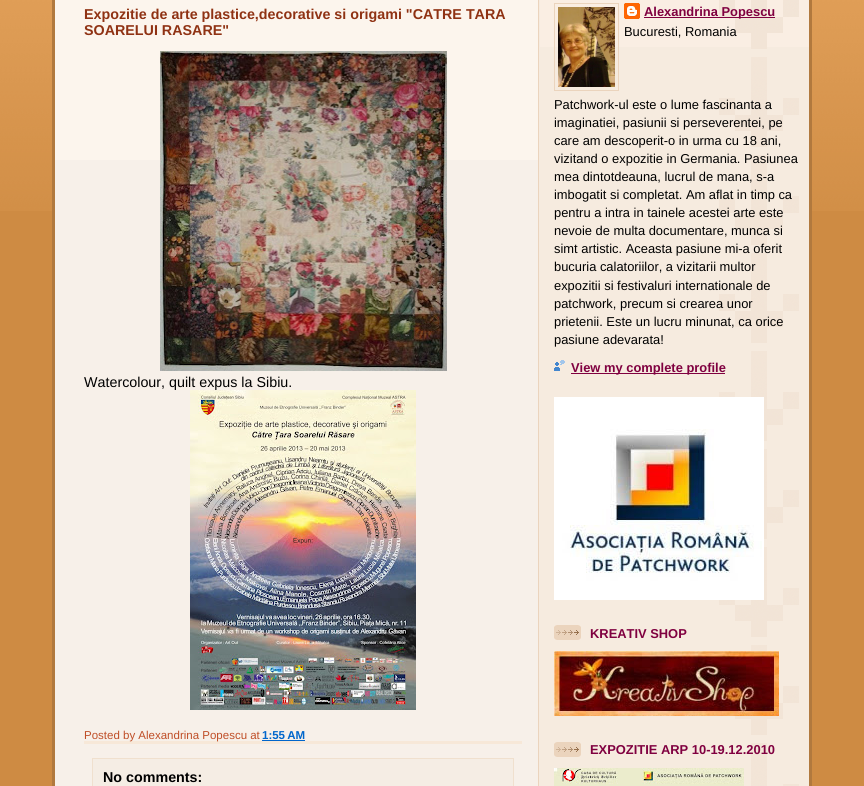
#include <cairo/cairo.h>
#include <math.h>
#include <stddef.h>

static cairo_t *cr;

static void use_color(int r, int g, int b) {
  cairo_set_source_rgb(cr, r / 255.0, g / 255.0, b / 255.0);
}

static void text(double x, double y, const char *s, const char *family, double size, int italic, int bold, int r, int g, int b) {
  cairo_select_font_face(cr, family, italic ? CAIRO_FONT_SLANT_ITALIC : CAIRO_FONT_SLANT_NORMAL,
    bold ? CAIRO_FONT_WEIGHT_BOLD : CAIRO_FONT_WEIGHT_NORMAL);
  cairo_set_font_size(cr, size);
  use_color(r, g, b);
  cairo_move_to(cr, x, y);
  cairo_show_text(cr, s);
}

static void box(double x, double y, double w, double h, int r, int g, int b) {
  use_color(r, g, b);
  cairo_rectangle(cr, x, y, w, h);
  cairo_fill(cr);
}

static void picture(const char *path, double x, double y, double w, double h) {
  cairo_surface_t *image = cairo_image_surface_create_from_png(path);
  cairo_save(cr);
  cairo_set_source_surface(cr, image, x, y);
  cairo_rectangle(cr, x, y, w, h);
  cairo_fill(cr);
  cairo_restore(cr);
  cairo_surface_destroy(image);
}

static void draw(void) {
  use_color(206, 139, 67);
  cairo_paint(cr);
  picture("img_01.png", 0, 0, 864, 211);
  picture("img_02.png", 52, 0, 760, 786);
  box(55, 0, 483, 160, 252, 245, 237);
  box(84, 741, 438, 3, 247, 232, 216);
  picture("img_03.png", 160, 51, 287, 320);
  picture("img_04.png", 190, 390, 226, 320);
  box(262, 740, 43, 1, 0, 102, 204);
  use_color(245, 237, 228);
  cairo_rectangle(cr, 92.5, 758.5, 421, 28);
  cairo_fill_preserve(cr);
  use_color(240, 224, 206);
  cairo_set_line_width(cr, 1);
  cairo_stroke(cr);
  box(540, 0, 269, 47, 250, 238, 227);
  picture("img_05.png", 719, 0, 80, 786);
  cairo_rectangle(cr, 554.5, 3.5, 64, 87);
  use_color(235, 212, 189);
  cairo_stroke(cr);
  picture("img_06.png", 558, 7, 57, 80);
  picture("img_07.png", 624, 3, 16, 16);
  box(644, 17, 131, 1, 128, 0, 64);
  picture("img_08.png", 554, 360, 11, 11);
  box(571, 373, 154, 1, 128, 0, 64);
  picture("img_09.png", 554, 397, 210, 203);
  picture("img_10.png", 554, 625, 27, 15);
  picture("img_11.png", 554, 651, 225, 65);
  picture("img_10.png", 554, 742, 27, 15);
  picture("img_12.png", 554, 768, 190, 18);
  text(84, 19, "Expozitie de arte plastice,decorative si origami \"CATRE TARA", "Liberation Sans", 14.3, 0, 1, 143, 50, 19);
  text(84, 35, "SOARELUI RASARE\"", "Liberation Sans", 14.3, 0, 1, 143, 50, 19);
  text(84, 387, "Watercolour, quilt expus la Sibiu.", "Liberation Sans", 14.3, 0, 0, 0, 0, 0);
  text(84, 739, "Posted by Alexandrina Popescu at", "Liberation Sans", 11.5, 0, 0, 191, 78, 39);
  text(262, 739, "1:55 AM", "Liberation Sans", 11.5, 0, 1, 0, 102, 204);
  text(103, 782, "No comments:", "Liberation Sans", 14.3, 0, 1, 0, 0, 0);
  text(644, 16, "Alexandrina Popescu", "Liberation Sans", 12.9, 0, 1, 128, 0, 64);
  text(624, 36, "Bucuresti, Romania", "Liberation Sans", 12.9, 0, 0, 0, 0, 0);
  text(554, 109, "Patchwork-ul este o lume fascinanta a", "Liberation Sans", 12.9, 0, 0, 0, 0, 0);
  text(554, 127, "imaginatiei, pasiunii si perseverentei, pe", "Liberation Sans", 12.9, 0, 0, 0, 0, 0);
  text(554, 145, "care am descoperit-o in urma cu 18 ani,", "Liberation Sans", 12.9, 0, 0, 0, 0, 0);
  text(554, 163, "vizitand o expozitie in Germania. Pasiunea", "Liberation Sans", 12.9, 0, 0, 0, 0, 0);
  text(554, 181, "mea dintotdeauna, lucrul de mana, s-a", "Liberation Sans", 12.9, 0, 0, 0, 0, 0);
  text(554, 199, "imbogatit si completat. Am aflat in timp ca", "Liberation Sans", 12.9, 0, 0, 0, 0, 0);
  text(554, 217, "pentru a intra in tainele acestei arte este", "Liberation Sans", 12.9, 0, 0, 0, 0, 0);
  text(554, 235, "nevoie de multa documentare, munca si", "Liberation Sans", 12.9, 0, 0, 0, 0, 0);
  text(554, 253, "simt artistic. Aceasta pasiune mi-a oferit", "Liberation Sans", 12.9, 0, 0, 0, 0, 0);
  text(554, 271, "bucuria calatoriilor, a vizitarii multor", "Liberation Sans", 12.9, 0, 0, 0, 0, 0);
  text(554, 290, "expozitii si festivaluri internationale de", "Liberation Sans", 12.9, 0, 0, 0, 0, 0);
  text(554, 308, "patchwork, precum si crearea unor", "Liberation Sans", 12.9, 0, 0, 0, 0, 0);
  text(554, 326, "prietenii. Este un lucru minunat, ca orice", "Liberation Sans", 12.9, 0, 0, 0, 0, 0);
  text(554, 344, "pasiune adevarata!", "Liberation Sans", 12.9, 0, 0, 0, 0, 0);
  text(571, 372, "View my complete profile", "Liberation Sans", 12.9, 0, 1, 128, 0, 64);
  text(590, 638, "KREATIV SHOP", "Liberation Sans", 12.9, 0, 1, 128, 0, 64);
  text(590, 754, "EXPOZITIE ARP 10-19.12.2010", "Liberation Sans", 12.9, 0, 1, 128, 0, 64);
}

int main(void) {
  cairo_surface_t *surface = cairo_image_surface_create(CAIRO_FORMAT_RGB24, 864, 786);
  cr = cairo_create(surface);
  cairo_font_options_t *options = cairo_font_options_create();
  cairo_font_options_set_hint_metrics(options, CAIRO_HINT_METRICS_OFF);
  cairo_font_options_set_hint_style(options, CAIRO_HINT_STYLE_NONE);
  cairo_set_font_options(cr, options);
  cairo_set_miter_limit(cr, 4);
  draw();
  cairo_surface_write_to_png(surface, "out.png");
  cairo_font_options_destroy(options);
  cairo_destroy(cr);
  cairo_surface_destroy(surface);
  return 0;
}
